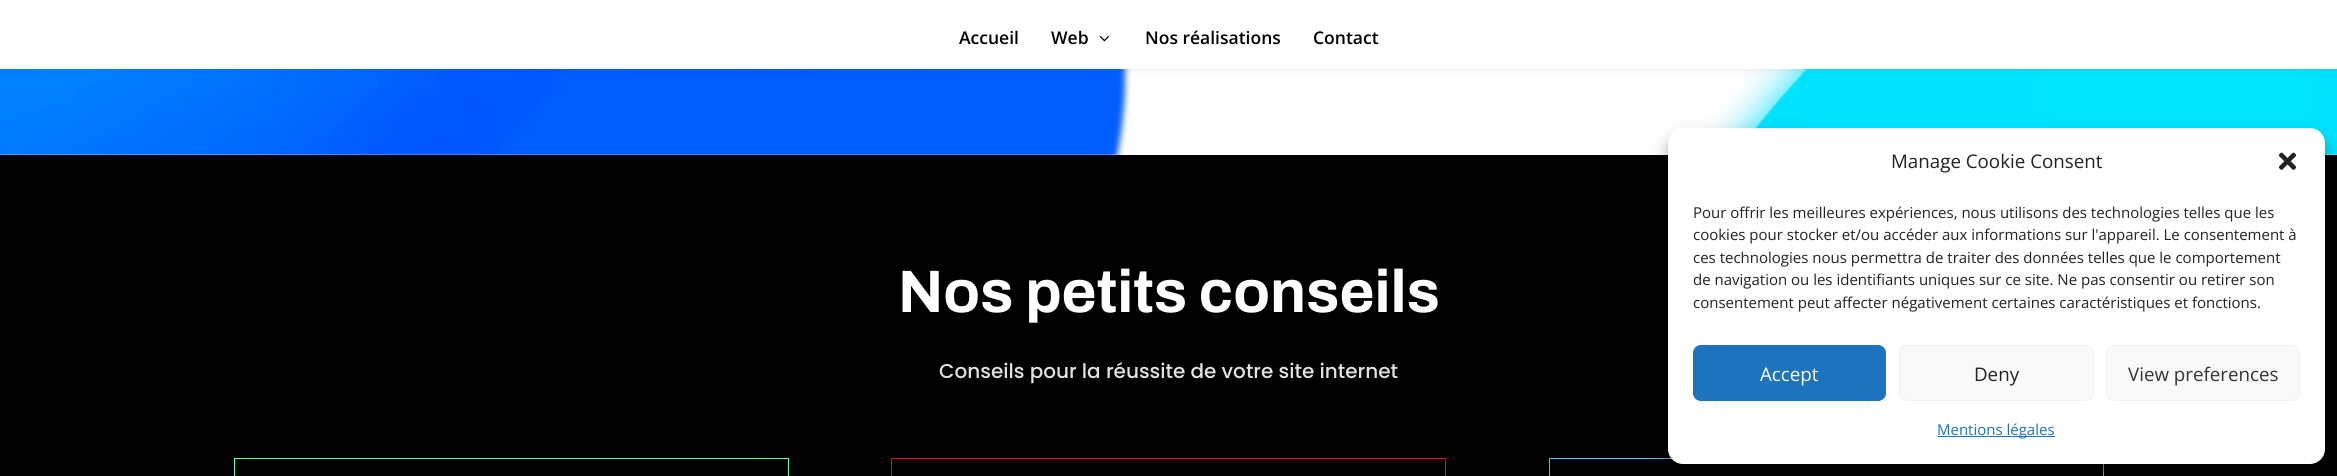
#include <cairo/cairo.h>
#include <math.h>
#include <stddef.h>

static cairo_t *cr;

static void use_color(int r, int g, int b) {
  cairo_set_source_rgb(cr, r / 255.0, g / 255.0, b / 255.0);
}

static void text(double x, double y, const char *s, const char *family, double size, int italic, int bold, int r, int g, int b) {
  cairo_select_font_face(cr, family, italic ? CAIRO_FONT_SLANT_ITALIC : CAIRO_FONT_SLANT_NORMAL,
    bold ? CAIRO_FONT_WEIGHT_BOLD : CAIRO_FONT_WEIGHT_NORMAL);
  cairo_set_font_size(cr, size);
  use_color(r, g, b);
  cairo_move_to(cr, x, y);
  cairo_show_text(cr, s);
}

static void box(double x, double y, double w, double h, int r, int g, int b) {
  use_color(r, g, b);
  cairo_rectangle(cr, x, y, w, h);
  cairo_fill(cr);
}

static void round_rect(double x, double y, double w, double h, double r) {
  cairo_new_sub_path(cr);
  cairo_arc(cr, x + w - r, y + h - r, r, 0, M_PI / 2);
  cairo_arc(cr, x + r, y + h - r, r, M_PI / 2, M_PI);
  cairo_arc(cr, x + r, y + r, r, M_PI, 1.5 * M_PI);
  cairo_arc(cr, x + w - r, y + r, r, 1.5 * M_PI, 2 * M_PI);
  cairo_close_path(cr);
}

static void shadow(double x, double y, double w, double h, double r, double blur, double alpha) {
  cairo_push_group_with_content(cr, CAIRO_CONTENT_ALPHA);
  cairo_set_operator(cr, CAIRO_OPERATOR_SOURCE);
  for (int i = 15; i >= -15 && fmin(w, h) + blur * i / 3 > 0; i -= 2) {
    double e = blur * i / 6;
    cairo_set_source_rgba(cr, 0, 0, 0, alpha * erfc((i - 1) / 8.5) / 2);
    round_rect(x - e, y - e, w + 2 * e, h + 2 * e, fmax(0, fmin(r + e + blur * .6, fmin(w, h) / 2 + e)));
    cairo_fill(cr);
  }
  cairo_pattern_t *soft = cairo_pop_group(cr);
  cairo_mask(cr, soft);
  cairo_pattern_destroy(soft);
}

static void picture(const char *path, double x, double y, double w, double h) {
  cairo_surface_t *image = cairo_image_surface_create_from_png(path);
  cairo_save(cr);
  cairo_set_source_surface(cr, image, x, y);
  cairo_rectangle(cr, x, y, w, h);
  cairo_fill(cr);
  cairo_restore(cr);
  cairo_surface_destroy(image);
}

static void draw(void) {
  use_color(0, 0, 0);
  cairo_paint(cr);
  box(0, 69, 2337, 86, 255, 255, 255);
  picture("img_02.png", 0, 69, 2337, 86);
  use_color(0, 0, 0);
  shadow(0, 0, 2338, 69, 0, 4.5, 0.1);
  box(0, 0, 2337, 69, 255, 255, 255);
  picture("img_01.png", 1099, 36, 10, 6);
  cairo_rectangle(cr, 234.5, 458.5, 554, 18);
  use_color(92, 255, 157);
  cairo_set_line_width(cr, 1);
  cairo_stroke(cr);
  cairo_rectangle(cr, 891.5, 458.5, 554, 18);
  use_color(255, 0, 15);
  cairo_stroke(cr);
  cairo_rectangle(cr, 1549.5, 458.5, 554, 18);
  use_color(96, 186, 236);
  cairo_stroke(cr);
  use_color(0, 0, 0);
  shadow(1668, 135, 657, 336, 15, 4, 0.23);
  shadow(1668, 140, 657, 336, 15, 12.5, 0.19);
  use_color(255, 255, 255);
  round_rect(1668, 128, 657, 336, 15);
  cairo_fill(cr);
  picture("img_03.png", 2278, 152, 19, 18);
  use_color(30, 115, 190);
  round_rect(1693.5, 345.5, 192, 55, 7.5);
  cairo_fill_preserve(cr);
  cairo_stroke(cr);
  use_color(249, 249, 249);
  round_rect(1899.5, 345.5, 194, 55, 7.5);
  cairo_fill_preserve(cr);
  use_color(242, 242, 242);
  cairo_stroke(cr);
  use_color(249, 249, 249);
  round_rect(2106.5, 345.5, 193, 55, 7.5);
  cairo_fill_preserve(cr);
  use_color(242, 242, 242);
  cairo_stroke(cr);
  box(1938, 436, 117, 1, 30, 115, 190);
  text(959, 44, "Accueil", "Open Sans SemiBold", 17.5, 0, 0, 0, 0, 0);
  text(1051, 44, "Web", "Open Sans SemiBold", 17.5, 0, 0, 0, 0, 0);
  text(1145, 44, "Nos réalisations", "Open Sans SemiBold", 17.5, 0, 0, 0, 0, 0);
  text(1313, 44, "Contact", "Open Sans SemiBold", 17.5, 0, 0, 0, 0, 0);
  text(898, 312, "Nos petits conseils", "Archivo SemiBold", 60, 0, 0, 255, 255, 255);
  text(939, 378, "Conseils pour la réussite de votre site internet", "Poppins Medium", 20, 0, 0, 226, 226, 226);
  text(1891, 168, "Manage Cookie Consent", "Open Sans", 18.75, 0, 0, 34, 34, 34);
  text(1693, 218, "Pour offrir les meilleures expériences, nous utilisons des technologies telles que les", "Open Sans", 15, 0, 0, 34, 34, 34);
  text(1693, 240, "cookies pour stocker et/ou accéder aux informations sur l'appareil. Le consentement à", "Open Sans", 15, 0, 0, 34, 34, 34);
  text(1693, 263, "ces technologies nous permettra de traiter des données telles que le comportement", "Open Sans", 15, 0, 0, 34, 34, 34);
  text(1693, 285, "de navigation ou les identifiants uniques sur ce site. Ne pas consentir ou retirer son", "Open Sans", 15, 0, 0, 34, 34, 34);
  text(1693, 308, "consentement peut affecter négativement certaines caractéristiques et fonctions.", "Open Sans", 15, 0, 0, 34, 34, 34);
  text(1760, 381, "Accept", "Open Sans", 18.75, 0, 0, 255, 255, 255);
  text(1974, 381, "Deny", "Open Sans", 18.75, 0, 0, 34, 34, 34);
  text(2128, 381, "View preferences", "Open Sans", 18.75, 0, 0, 51, 51, 51);
  text(1937, 435, "Mentions légales", "Open Sans", 15, 0, 0, 30, 115, 190);
}

int main(void) {
  cairo_surface_t *surface = cairo_image_surface_create(CAIRO_FORMAT_RGB24, 2337, 476);
  cr = cairo_create(surface);
  cairo_font_options_t *options = cairo_font_options_create();
  cairo_font_options_set_hint_metrics(options, CAIRO_HINT_METRICS_OFF);
  cairo_font_options_set_hint_style(options, CAIRO_HINT_STYLE_NONE);
  cairo_set_font_options(cr, options);
  cairo_set_miter_limit(cr, 4);
  draw();
  cairo_surface_write_to_png(surface, "out.png");
  cairo_font_options_destroy(options);
  cairo_destroy(cr);
  cairo_surface_destroy(surface);
  return 0;
}
